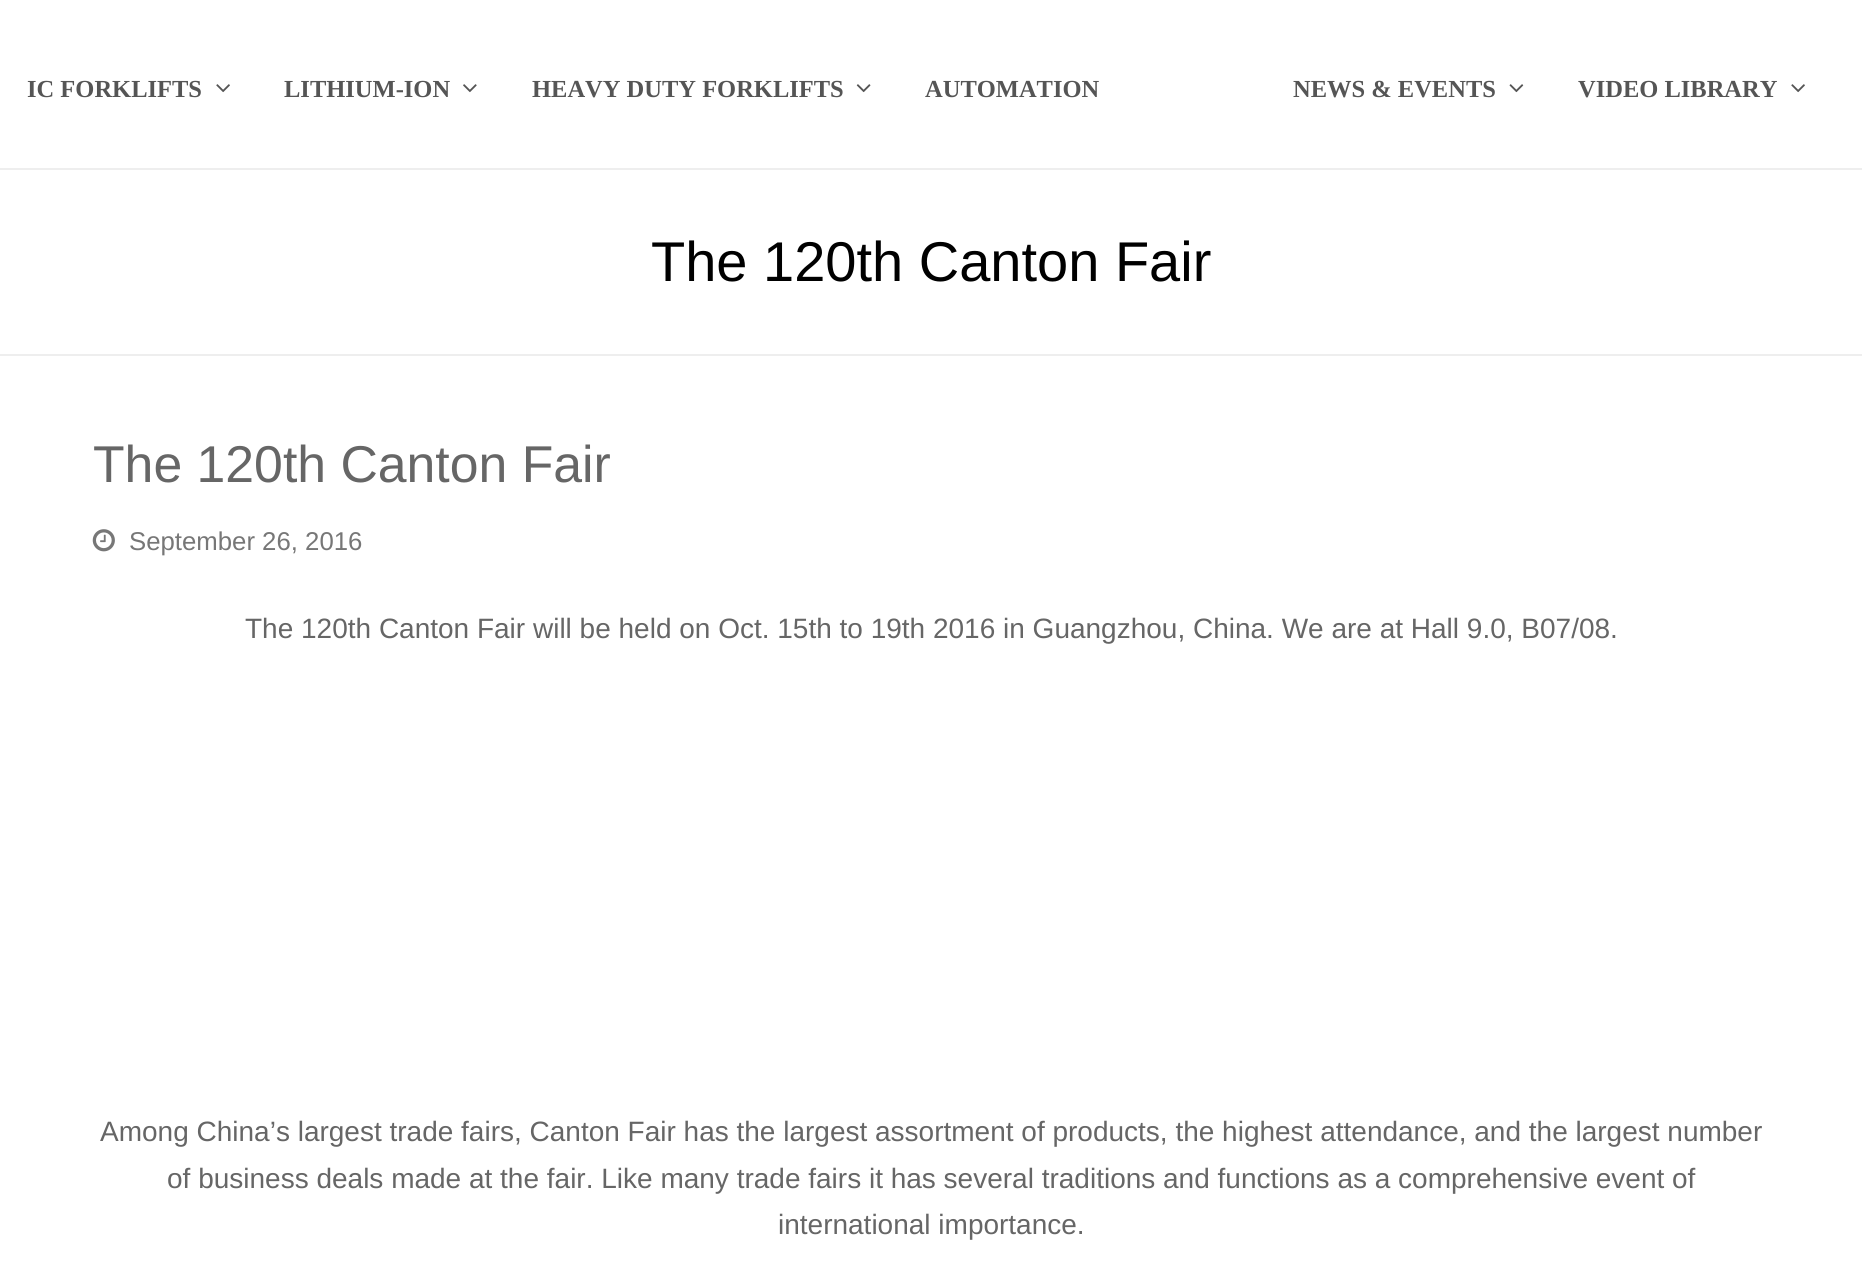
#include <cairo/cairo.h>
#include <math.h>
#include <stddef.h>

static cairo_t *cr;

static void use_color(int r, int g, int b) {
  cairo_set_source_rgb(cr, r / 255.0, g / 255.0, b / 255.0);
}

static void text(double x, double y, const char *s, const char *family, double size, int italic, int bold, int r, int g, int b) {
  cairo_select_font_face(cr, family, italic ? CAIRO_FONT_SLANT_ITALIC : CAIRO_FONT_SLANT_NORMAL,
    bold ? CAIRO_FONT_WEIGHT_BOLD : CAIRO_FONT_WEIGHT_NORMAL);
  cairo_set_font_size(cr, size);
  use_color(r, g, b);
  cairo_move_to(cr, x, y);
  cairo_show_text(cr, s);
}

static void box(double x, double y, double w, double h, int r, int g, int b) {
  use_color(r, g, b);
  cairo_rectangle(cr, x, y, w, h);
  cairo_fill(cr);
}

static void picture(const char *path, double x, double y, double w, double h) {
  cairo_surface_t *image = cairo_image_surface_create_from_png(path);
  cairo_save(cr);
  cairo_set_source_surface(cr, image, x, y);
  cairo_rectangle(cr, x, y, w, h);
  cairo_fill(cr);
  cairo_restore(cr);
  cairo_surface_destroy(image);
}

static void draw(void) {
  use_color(255, 255, 255);
  cairo_paint(cr);
  picture("img_01.png", 216, 84, 14, 9);
  picture("img_02.png", 463, 84, 14, 9);
  picture("img_03.png", 856, 84, 15, 9);
  picture("img_04.png", 1509, 84, 15, 9);
  picture("img_01.png", 1791, 84, 14, 9);
  box(0, 168, 1862, 2, 238, 238, 238);
  box(0, 354, 1862, 2, 238, 238, 238);
  picture("img_05.png", 92, 529, 23, 23);
  text(27, 97, "IC FORKLIFTS", "Liberation Serif", 24.5, 0, 1, 85, 85, 85);
  text(284, 97, "LITHIUM-ION", "Liberation Serif", 24.5, 0, 1, 85, 85, 85);
  text(532, 97, "HEAVY DUTY FORKLIFTS", "Liberation Serif", 24.5, 0, 1, 85, 85, 85);
  text(925, 97, "AUTOMATION", "Liberation Serif", 24.5, 0, 1, 85, 85, 85);
  text(1293, 97, "NEWS & EVENTS", "Liberation Serif", 24.5, 0, 1, 85, 85, 85);
  text(1578, 97, "VIDEO LIBRARY", "Liberation Serif", 24.5, 0, 1, 85, 85, 85);
  text(651, 281, "The 120th Canton Fair", "Liberation Sans", 56, 0, 0, 0, 0, 0);
  text(93, 482, "The 120th Canton Fair", "Liberation Sans", 51.75, 0, 0, 102, 102, 102);
  text(129, 550, "September 26, 2016", "Liberation Sans", 25.75, 0, 0, 119, 119, 119);
  text(245, 638, "The 120th Canton Fair will be held on Oct. 15th to 19th 2016 in Guangzhou, China. We are at Hall 9.0, B07/08.", "Liberation Sans", 28, 0, 0, 102, 102, 102);
  text(100, 1141, "Among China’s largest trade fairs, Canton Fair has the largest assortment of products, the highest attendance, and the largest number", "Liberation Sans", 28, 0, 0, 102, 102, 102);
  text(167, 1188, "of business deals made at the fair. Like many trade fairs it has several traditions and functions as a comprehensive event of", "Liberation Sans", 28, 0, 0, 102, 102, 102);
  text(778, 1234, "international importance.", "Liberation Sans", 28, 0, 0, 102, 102, 102);
}

int main(void) {
  cairo_surface_t *surface = cairo_image_surface_create(CAIRO_FORMAT_RGB24, 1862, 1279);
  cr = cairo_create(surface);
  cairo_font_options_t *options = cairo_font_options_create();
  cairo_font_options_set_hint_metrics(options, CAIRO_HINT_METRICS_OFF);
  cairo_font_options_set_hint_style(options, CAIRO_HINT_STYLE_NONE);
  cairo_set_font_options(cr, options);
  cairo_set_miter_limit(cr, 4);
  draw();
  cairo_surface_write_to_png(surface, "out.png");
  cairo_font_options_destroy(options);
  cairo_destroy(cr);
  cairo_surface_destroy(surface);
  return 0;
}
